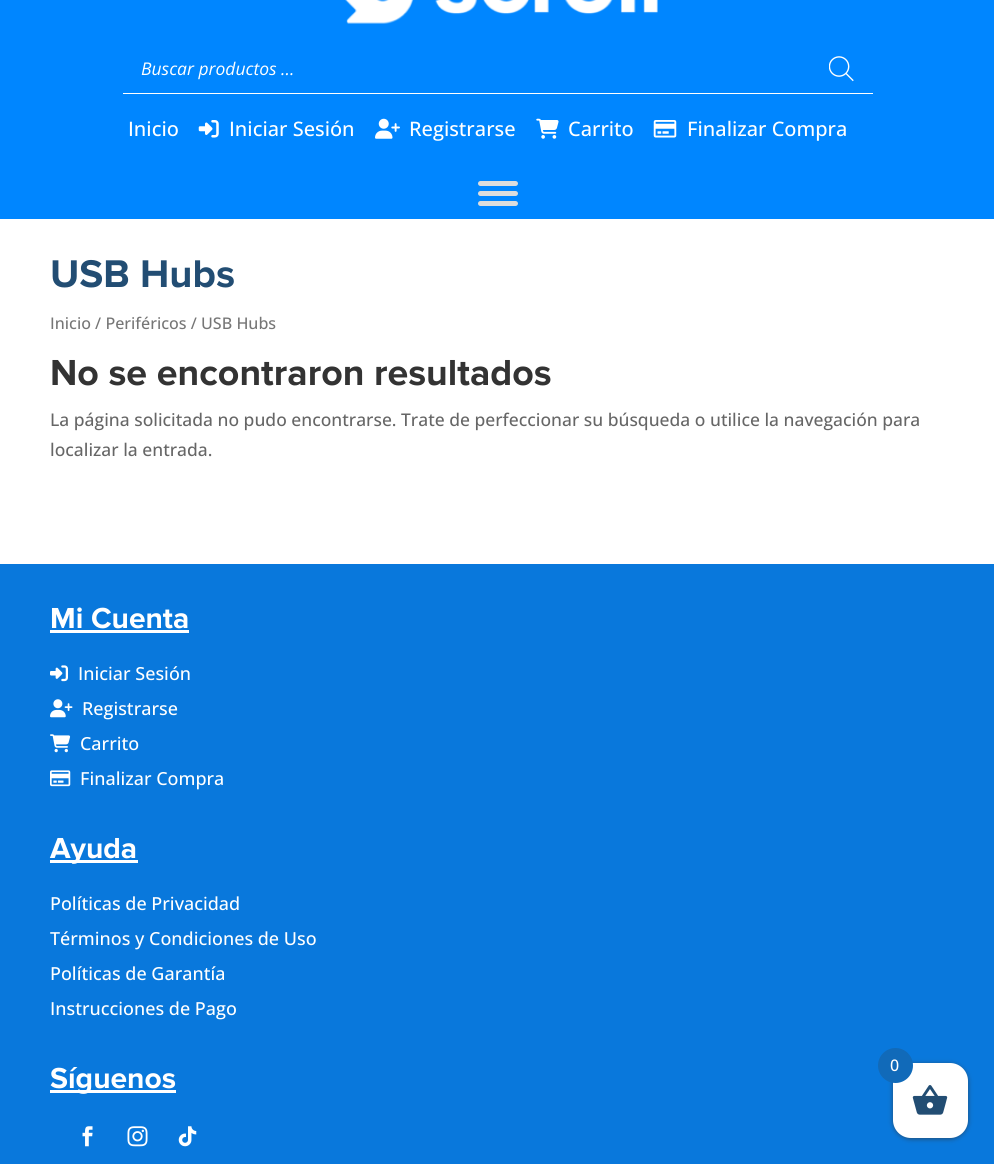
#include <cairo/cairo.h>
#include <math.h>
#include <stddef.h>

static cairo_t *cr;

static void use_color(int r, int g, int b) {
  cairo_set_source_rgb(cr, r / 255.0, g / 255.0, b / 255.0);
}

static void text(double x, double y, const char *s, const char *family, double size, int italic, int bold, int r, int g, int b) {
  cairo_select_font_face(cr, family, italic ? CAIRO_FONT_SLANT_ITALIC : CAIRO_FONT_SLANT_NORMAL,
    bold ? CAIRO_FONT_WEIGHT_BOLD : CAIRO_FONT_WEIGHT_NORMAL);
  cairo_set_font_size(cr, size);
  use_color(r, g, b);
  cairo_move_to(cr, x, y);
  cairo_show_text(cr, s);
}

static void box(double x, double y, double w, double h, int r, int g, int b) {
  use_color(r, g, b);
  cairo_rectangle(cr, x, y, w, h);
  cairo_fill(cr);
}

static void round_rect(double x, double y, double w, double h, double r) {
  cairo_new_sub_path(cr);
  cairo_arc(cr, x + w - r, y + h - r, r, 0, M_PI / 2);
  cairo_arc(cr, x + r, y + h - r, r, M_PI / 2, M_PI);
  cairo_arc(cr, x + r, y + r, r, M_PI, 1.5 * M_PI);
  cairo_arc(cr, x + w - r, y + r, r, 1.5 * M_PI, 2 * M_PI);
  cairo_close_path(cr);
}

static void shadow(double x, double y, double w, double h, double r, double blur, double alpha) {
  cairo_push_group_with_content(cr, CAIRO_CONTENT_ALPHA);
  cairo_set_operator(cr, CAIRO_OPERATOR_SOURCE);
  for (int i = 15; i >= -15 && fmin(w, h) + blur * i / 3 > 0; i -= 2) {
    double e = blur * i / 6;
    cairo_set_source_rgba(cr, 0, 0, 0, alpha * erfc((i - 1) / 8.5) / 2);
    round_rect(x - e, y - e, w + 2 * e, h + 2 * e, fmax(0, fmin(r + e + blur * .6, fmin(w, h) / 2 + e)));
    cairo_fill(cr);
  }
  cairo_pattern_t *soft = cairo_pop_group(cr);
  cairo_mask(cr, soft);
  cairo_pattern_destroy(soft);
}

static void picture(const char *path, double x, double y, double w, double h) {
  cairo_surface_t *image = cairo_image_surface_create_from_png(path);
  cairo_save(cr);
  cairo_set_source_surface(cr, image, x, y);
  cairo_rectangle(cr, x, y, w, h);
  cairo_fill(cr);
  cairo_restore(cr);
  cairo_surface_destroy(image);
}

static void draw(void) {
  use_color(255, 255, 255);
  cairo_paint(cr);
  box(0, 0, 994, 219, 0, 134, 255);
  picture("img_01.png", 345, 0, 313, 24);
  box(123, 93, 750, 1, 255, 255, 255);
  picture("img_02.png", 829, 56, 25, 26);
  picture("img_03.png", 198, 120, 21, 18);
  picture("img_04.png", 375, 118, 25, 21);
  picture("img_05.png", 536, 118, 23, 21);
  picture("img_06.png", 653, 120, 24, 18);
  use_color(221, 221, 221);
  round_rect(478, 181, 40, 5, 2.5);
  cairo_fill(cr);
  round_rect(478, 191, 40, 5, 2.5);
  cairo_fill(cr);
  round_rect(478, 201, 40, 5, 2.5);
  cairo_fill(cr);
  box(0, 564, 994, 600, 9, 120, 220);
  box(50, 630, 139, 3, 255, 255, 255);
  picture("img_07.png", 50, 665, 18, 17);
  picture("img_08.png", 50, 699, 23, 19);
  picture("img_09.png", 50, 734, 21, 19);
  picture("img_10.png", 50, 770, 21, 17);
  box(50, 860, 88, 3, 255, 255, 255);
  box(50, 1090, 126, 3, 255, 255, 255);
  picture("img_11.png", 82, 1126, 11, 21);
  picture("img_12.png", 127, 1126, 21, 21);
  picture("img_13.png", 178, 1126, 19, 21);
  use_color(34, 77, 115);
  shadow(893, 1064, 75, 75, 18, 2.5, 1);
  use_color(255, 255, 255);
  round_rect(893, 1063, 75, 75, 18);
  cairo_fill(cr);
  use_color(17, 106, 185);
  cairo_arc(cr, 895.5, 1065.5, 17.5, 0, 2 * M_PI);
  cairo_fill(cr);
  picture("img_14.png", 912, 1085, 36, 30);
  text(141, 75, "Buscar productos ...", "Open Sans", 17.5, 1, 0, 255, 255, 255);
  text(128, 136, "Inicio", "Open Sans Medium", 20, 0, 0, 255, 255, 255);
  text(229, 136, "Iniciar Sesión", "Open Sans Medium", 20, 0, 0, 255, 255, 255);
  text(409, 136, "Registrarse", "Open Sans Medium", 20, 0, 0, 255, 255, 255);
  text(568, 136, "Carrito", "Open Sans Medium", 20, 0, 0, 255, 255, 255);
  text(687, 136, "Finalizar Compra", "Open Sans Medium", 20, 0, 0, 255, 255, 255);
  text(50, 287, "USB Hubs", "Proxima Nova", 40, 0, 1, 34, 77, 115);
  text(50, 329, "Inicio / Periféricos / USB Hubs", "Open Sans Medium", 16.1, 0, 0, 118, 118, 118);
  text(50, 385, "No se encontraron resultados", "Proxima Nova", 37.5, 0, 1, 51, 51, 51);
  text(50, 426, "La página solicitada no pudo encontrarse. Trate de perfeccionar su búsqueda o utilice la navegación para", "Open Sans Medium", 17.5, 0, 0, 102, 102, 102);
  text(50, 456, "localizar la entrada.", "Open Sans Medium", 17.5, 0, 0, 102, 102, 102);
  text(50, 628, "Mi Cuenta", "Proxima Nova", 30, 0, 1, 255, 255, 255);
  text(78, 680, "Iniciar Sesión", "Open Sans Medium", 18, 0, 0, 255, 255, 255);
  text(82, 715, "Registrarse", "Open Sans Medium", 18, 0, 0, 255, 255, 255);
  text(80, 750, "Carrito", "Open Sans Medium", 18, 0, 0, 255, 255, 255);
  text(80, 785, "Finalizar Compra", "Open Sans Medium", 18, 0, 0, 255, 255, 255);
  text(50, 858, "Ayuda", "Proxima Nova", 30, 0, 1, 255, 255, 255);
  text(50, 910, "Políticas de Privacidad", "Open Sans Medium", 18, 0, 0, 255, 255, 255);
  text(50, 945, "Términos y Condiciones de Uso", "Open Sans Medium", 18, 0, 0, 255, 255, 255);
  text(50, 980, "Políticas de Garantía", "Open Sans Medium", 18, 0, 0, 255, 255, 255);
  text(50, 1015, "Instrucciones de Pago", "Open Sans Medium", 18, 0, 0, 255, 255, 255);
  text(50, 1088, "Síguenos", "Proxima Nova", 30, 0, 1, 255, 255, 255);
  text(890, 1071, "0", "Open Sans Medium", 16, 0, 0, 255, 255, 255);
}

int main(void) {
  cairo_surface_t *surface = cairo_image_surface_create(CAIRO_FORMAT_RGB24, 994, 1164);
  cr = cairo_create(surface);
  cairo_font_options_t *options = cairo_font_options_create();
  cairo_font_options_set_hint_metrics(options, CAIRO_HINT_METRICS_OFF);
  cairo_font_options_set_hint_style(options, CAIRO_HINT_STYLE_NONE);
  cairo_set_font_options(cr, options);
  cairo_set_miter_limit(cr, 4);
  draw();
  cairo_surface_write_to_png(surface, "out.png");
  cairo_font_options_destroy(options);
  cairo_destroy(cr);
  cairo_surface_destroy(surface);
  return 0;
}
